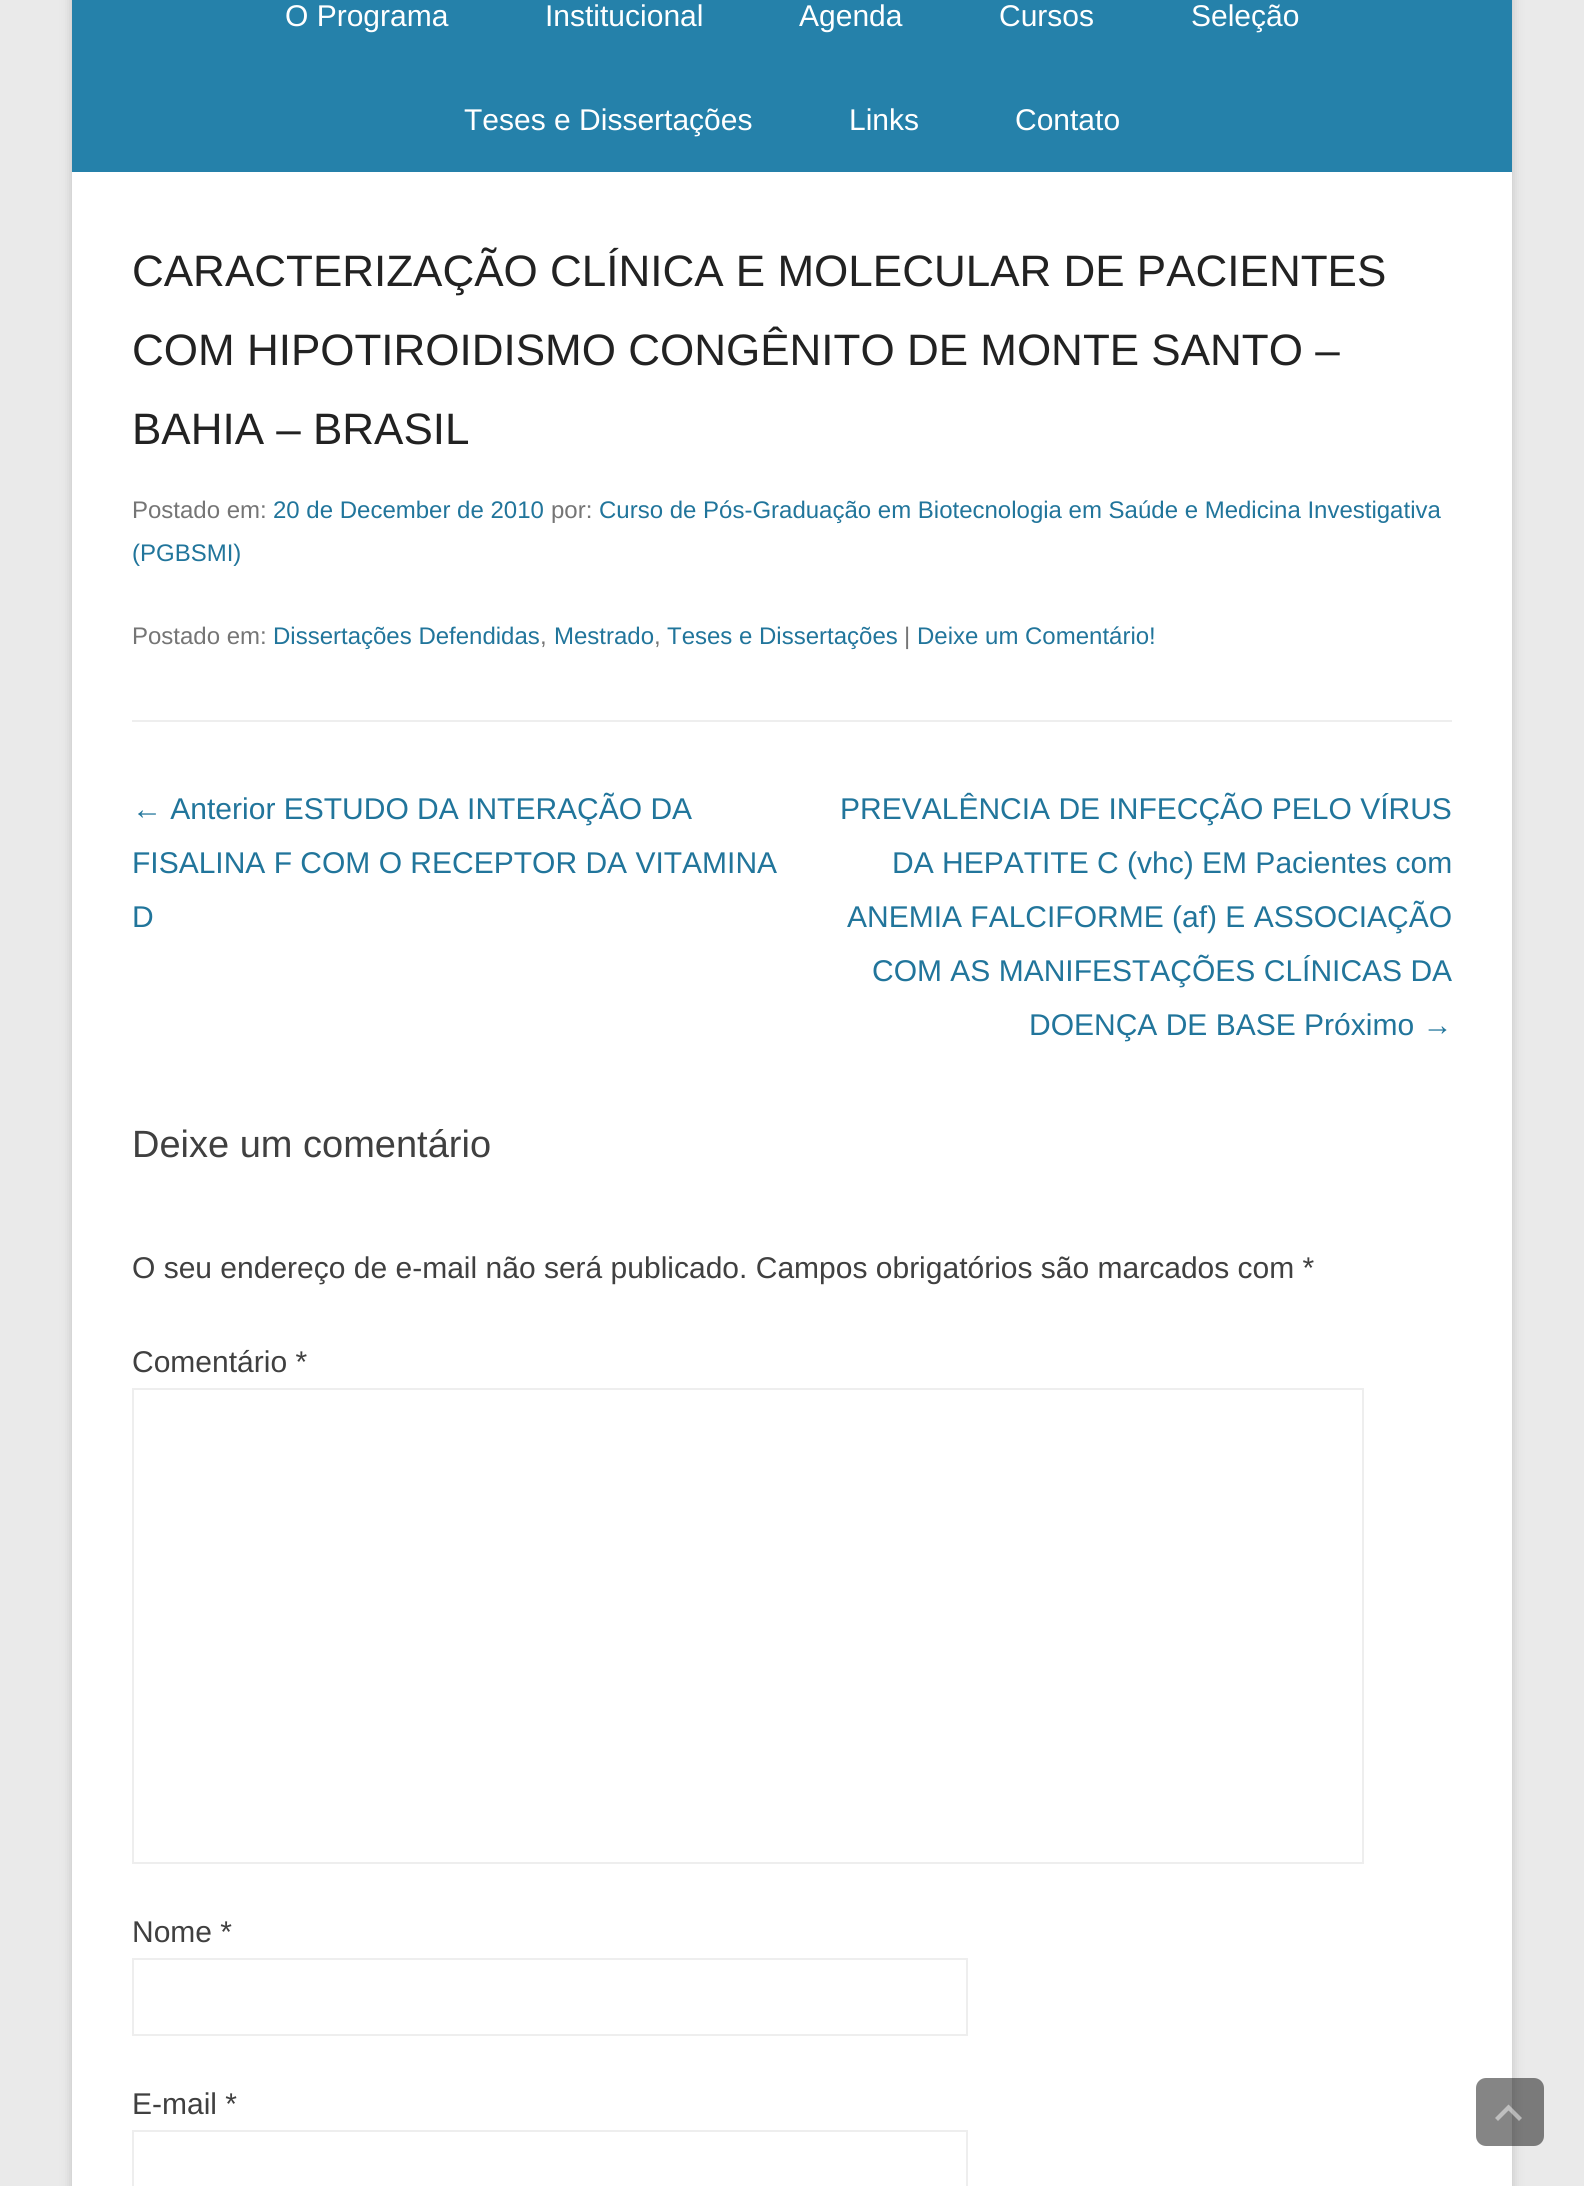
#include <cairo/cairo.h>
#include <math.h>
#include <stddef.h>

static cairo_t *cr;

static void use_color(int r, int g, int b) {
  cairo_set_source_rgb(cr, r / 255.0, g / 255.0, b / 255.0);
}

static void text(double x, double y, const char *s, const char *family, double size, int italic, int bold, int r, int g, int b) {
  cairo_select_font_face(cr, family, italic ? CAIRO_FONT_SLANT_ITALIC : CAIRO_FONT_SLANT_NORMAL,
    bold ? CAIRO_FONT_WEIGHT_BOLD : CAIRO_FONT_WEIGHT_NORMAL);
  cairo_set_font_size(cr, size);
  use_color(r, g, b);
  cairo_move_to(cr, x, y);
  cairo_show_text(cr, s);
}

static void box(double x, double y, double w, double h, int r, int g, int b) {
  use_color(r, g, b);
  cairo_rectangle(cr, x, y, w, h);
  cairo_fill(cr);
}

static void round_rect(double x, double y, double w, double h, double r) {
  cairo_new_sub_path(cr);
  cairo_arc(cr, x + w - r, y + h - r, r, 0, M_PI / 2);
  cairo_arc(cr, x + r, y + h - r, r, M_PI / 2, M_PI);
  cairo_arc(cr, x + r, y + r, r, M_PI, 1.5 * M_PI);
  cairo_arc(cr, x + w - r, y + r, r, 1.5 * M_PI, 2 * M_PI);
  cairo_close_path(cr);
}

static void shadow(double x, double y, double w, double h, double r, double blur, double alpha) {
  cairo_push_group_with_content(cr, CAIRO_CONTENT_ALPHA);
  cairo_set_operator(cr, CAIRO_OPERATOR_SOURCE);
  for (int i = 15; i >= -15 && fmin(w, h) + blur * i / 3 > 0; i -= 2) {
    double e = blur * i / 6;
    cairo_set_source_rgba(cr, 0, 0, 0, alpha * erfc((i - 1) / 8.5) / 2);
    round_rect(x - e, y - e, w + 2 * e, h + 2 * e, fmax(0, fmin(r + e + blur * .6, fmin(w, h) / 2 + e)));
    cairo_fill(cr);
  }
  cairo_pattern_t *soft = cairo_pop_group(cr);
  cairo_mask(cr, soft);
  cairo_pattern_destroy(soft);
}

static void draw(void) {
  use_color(234, 234, 234);
  cairo_paint(cr);
  use_color(100, 100, 100);
  shadow(72, -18, 1440, 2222, 0, 6, 0.3);
  box(72, 172, 1440, 2014, 255, 255, 255);
  box(72, 0, 1440, 172, 37, 129, 170);
  box(132, 720, 1320, 2, 238, 238, 238);
  cairo_rectangle(cr, 133, 1389, 1230, 474);
  cairo_stroke(cr);
  cairo_rectangle(cr, 133, 1959, 834, 76);
  cairo_stroke(cr);
  cairo_rectangle(cr, 133, 2131, 834, 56);
  cairo_stroke(cr);
  cairo_set_source_rgba(cr, 0, 0, 0, 0.48);
  round_rect(1476, 2078, 68, 68, 10);
  cairo_fill(cr);
  cairo_set_source_rgba(cr, 1, 1, 1, 0.48);
  cairo_new_path(cr);
  cairo_move_to(cr, 1519, 2121);
  cairo_line_to(cr, 1508.5, 2110.5);
  cairo_line_to(cr, 1498, 2121);
  cairo_line_to(cr, 1495, 2118);
  cairo_line_to(cr, 1508.5, 2104.5);
  cairo_line_to(cr, 1522, 2118);
  cairo_close_path(cr);
  cairo_fill(cr);
  text(285, 26, "O Programa", "Liberation Sans", 30, 0, 0, 255, 255, 255);
  text(545, 26, "Institucional", "Liberation Sans", 30, 0, 0, 255, 255, 255);
  text(799, 26, "Agenda", "Liberation Sans", 30, 0, 0, 255, 255, 255);
  text(999, 26, "Cursos", "Liberation Sans", 30, 0, 0, 255, 255, 255);
  text(1191, 26, "Seleção", "Liberation Sans", 30, 0, 0, 255, 255, 255);
  text(464, 130, "Teses e Dissertações", "Liberation Sans", 30, 0, 0, 255, 255, 255);
  text(849, 130, "Links", "Liberation Sans", 30, 0, 0, 255, 255, 255);
  text(1015, 130, "Contato", "Liberation Sans", 30, 0, 0, 255, 255, 255);
  text(132, 286, "CARACTERIZAÇÃO CLÍNICA E MOLECULAR DE PACIENTES", "Liberation Sans", 44, 0, 0, 34, 34, 34);
  text(132, 365, "COM HIPOTIROIDISMO CONGÊNITO DE MONTE SANTO –", "Liberation Sans", 44, 0, 0, 34, 34, 34);
  text(132, 444, "BAHIA – BRASIL", "Liberation Sans", 44, 0, 0, 34, 34, 34);
  text(132, 518, "Postado em:", "Liberation Sans", 24, 0, 0, 117, 117, 117);
  text(273, 518, "20 de December de 2010", "Liberation Sans", 24, 0, 0, 33, 117, 155);
  text(551, 518, "por:", "Liberation Sans", 24, 0, 0, 117, 117, 117);
  text(599, 518, "Curso de Pós-Graduação em Biotecnologia em Saúde e Medicina Investigativa", "Liberation Sans", 24, 0, 0, 33, 117, 155);
  text(132, 561, "(PGBSMI)", "Liberation Sans", 24, 0, 0, 33, 117, 155);
  text(132, 644, "Postado em:", "Liberation Sans", 24, 0, 0, 117, 117, 117);
  text(273, 644, "Dissertações Defendidas", "Liberation Sans", 24, 0, 0, 33, 117, 155);
  text(540, 644, ",", "Liberation Sans", 24, 0, 0, 117, 117, 117);
  text(554, 644, "Mestrado", "Liberation Sans", 24, 0, 0, 33, 117, 155);
  text(654, 644, ",", "Liberation Sans", 24, 0, 0, 117, 117, 117);
  text(667, 644, "Teses e Dissertações", "Liberation Sans", 24, 0, 0, 33, 117, 155);
  text(904, 644, "|", "Liberation Sans", 24, 0, 0, 117, 117, 117);
  text(917, 644, "Deixe um Comentário!", "Liberation Sans", 24, 0, 0, 33, 117, 155);
  text(132, 819, "← Anterior ESTUDO DA INTERAÇÃO DA", "Liberation Sans", 30, 0, 0, 33, 117, 155);
  text(132, 873, "FISALINA F COM O RECEPTOR DA VITAMINA", "Liberation Sans", 30, 0, 0, 33, 117, 155);
  text(132, 927, "D", "Liberation Sans", 30, 0, 0, 33, 117, 155);
  text(840, 819, "PREVALÊNCIA DE INFECÇÃO PELO VÍRUS", "Liberation Sans", 30, 0, 0, 33, 117, 155);
  text(892, 873, "DA HEPATITE C (vhc) EM Pacientes com", "Liberation Sans", 30, 0, 0, 33, 117, 155);
  text(847, 927, "ANEMIA FALCIFORME (af) E ASSOCIAÇÃO", "Liberation Sans", 30, 0, 0, 33, 117, 155);
  text(872, 981, "COM AS MANIFESTAÇÕES CLÍNICAS DA", "Liberation Sans", 30, 0, 0, 33, 117, 155);
  text(1029, 1035, "DOENÇA DE BASE Próximo →", "Liberation Sans", 30, 0, 0, 33, 117, 155);
  text(132, 1157, "Deixe um comentário", "Liberation Sans", 38, 0, 0, 64, 64, 64);
  text(132, 1278, "O seu endereço de e-mail não será publicado. Campos obrigatórios são marcados com *", "Liberation Sans", 30, 0, 0, 64, 64, 64);
  text(132, 1372, "Comentário *", "Liberation Sans", 30, 0, 0, 64, 64, 64);
  text(132, 1942, "Nome *", "Liberation Sans", 30, 0, 0, 64, 64, 64);
  text(132, 2114, "E-mail *", "Liberation Sans", 30, 0, 0, 64, 64, 64);
}

int main(void) {
  cairo_surface_t *surface = cairo_image_surface_create(CAIRO_FORMAT_RGB24, 1584, 2186);
  cr = cairo_create(surface);
  cairo_font_options_t *options = cairo_font_options_create();
  cairo_font_options_set_hint_metrics(options, CAIRO_HINT_METRICS_OFF);
  cairo_font_options_set_hint_style(options, CAIRO_HINT_STYLE_NONE);
  cairo_set_font_options(cr, options);
  cairo_set_miter_limit(cr, 4);
  draw();
  cairo_surface_write_to_png(surface, "out.png");
  cairo_font_options_destroy(options);
  cairo_destroy(cr);
  cairo_surface_destroy(surface);
  return 0;
}
